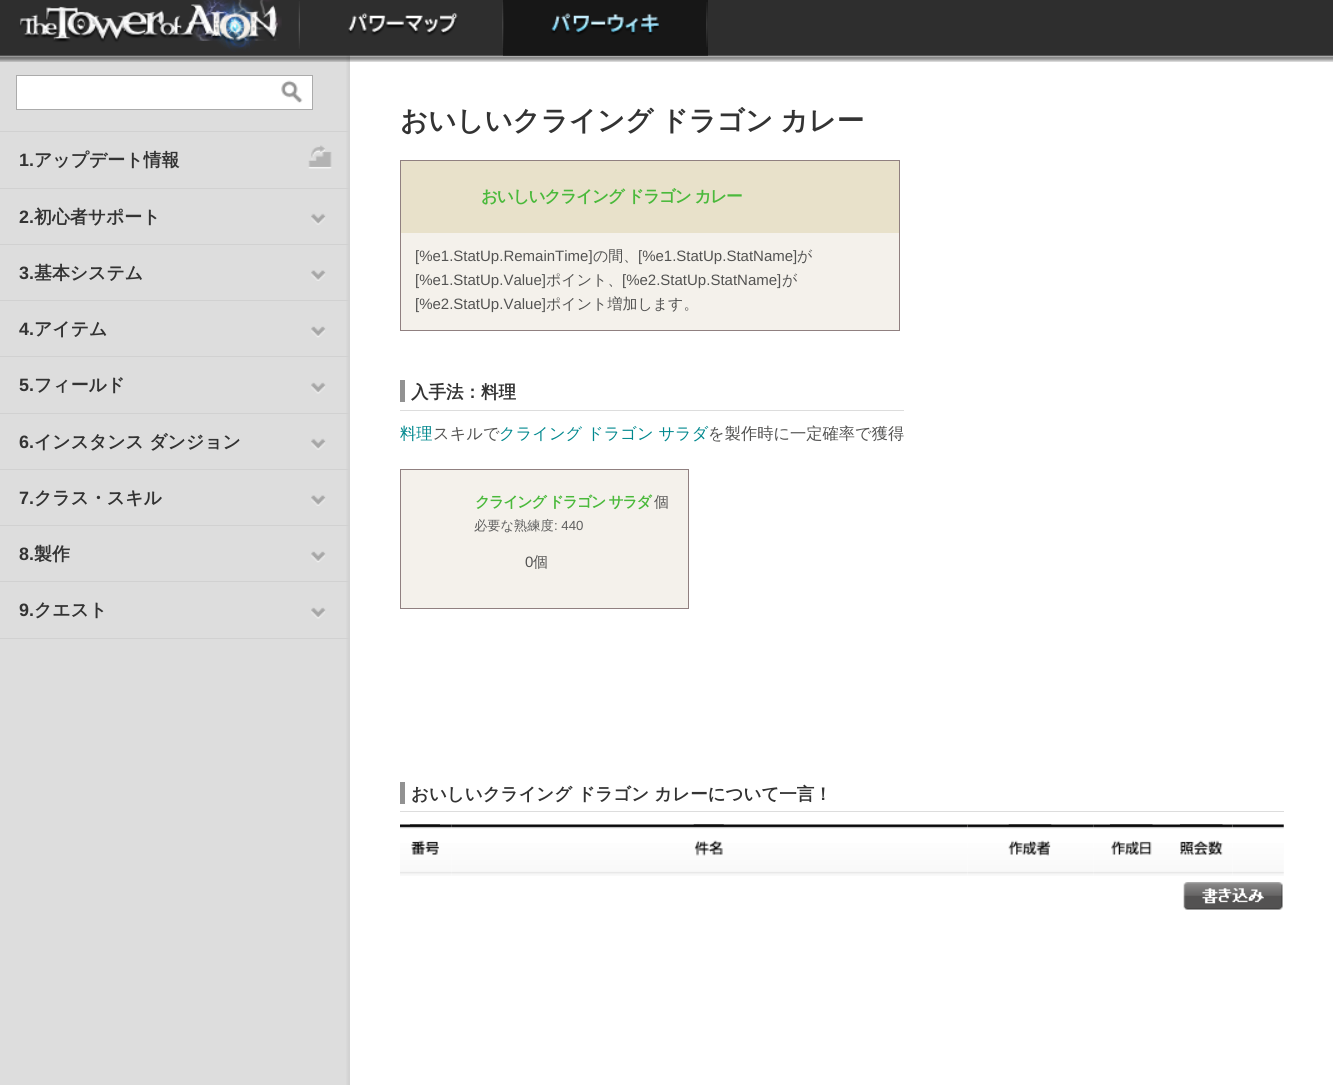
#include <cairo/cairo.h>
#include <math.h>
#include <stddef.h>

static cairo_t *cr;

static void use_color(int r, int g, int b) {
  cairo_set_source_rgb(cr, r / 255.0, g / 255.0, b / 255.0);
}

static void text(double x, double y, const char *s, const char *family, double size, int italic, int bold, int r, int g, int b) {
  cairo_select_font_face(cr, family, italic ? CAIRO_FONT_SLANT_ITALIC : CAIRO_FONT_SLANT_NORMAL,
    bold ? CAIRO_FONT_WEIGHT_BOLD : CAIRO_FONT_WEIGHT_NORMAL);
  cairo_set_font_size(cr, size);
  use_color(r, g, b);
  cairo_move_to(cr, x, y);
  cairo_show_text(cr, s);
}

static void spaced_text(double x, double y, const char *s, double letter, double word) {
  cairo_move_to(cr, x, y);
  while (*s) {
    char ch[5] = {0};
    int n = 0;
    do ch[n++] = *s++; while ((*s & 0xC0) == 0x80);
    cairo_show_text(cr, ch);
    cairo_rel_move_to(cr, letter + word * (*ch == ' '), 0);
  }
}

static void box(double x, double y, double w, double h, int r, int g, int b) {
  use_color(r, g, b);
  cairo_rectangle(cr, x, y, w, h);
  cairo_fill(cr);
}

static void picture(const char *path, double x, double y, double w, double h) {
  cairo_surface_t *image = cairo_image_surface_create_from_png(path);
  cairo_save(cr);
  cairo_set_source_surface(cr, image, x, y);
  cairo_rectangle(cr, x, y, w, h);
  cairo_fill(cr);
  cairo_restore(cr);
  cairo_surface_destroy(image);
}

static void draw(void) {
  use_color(255, 255, 255);
  cairo_paint(cr);
  picture("img_08.png", 0, 55, 350, 1030);
  picture("img_01.png", 0, 0, 1333, 62);
  picture("img_02.png", 298, 1, 2, 48);
  picture("img_03.png", 19, 0, 263, 52);
  picture("img_04.png", 502, 2, 2, 46);
  picture("img_05.png", 348, 13, 110, 23);
  cairo_set_source_rgba(cr, 0, 0, 0, 0.5);
  cairo_rectangle(cr, 503, 0, 205, 56);
  cairo_fill(cr);
  picture("img_06.png", 706, 2, 2, 45);
  picture("img_07.png", 551, 13, 108, 22);
  box(0, 131, 350, 1, 209, 209, 209);
  use_color(255, 255, 255);
  cairo_rectangle(cr, 16.5, 75.5, 296, 34);
  cairo_fill_preserve(cr);
  use_color(171, 171, 171);
  cairo_set_line_width(cr, 1);
  cairo_stroke(cr);
  picture("img_09.png", 281, 80, 22, 23);
  box(0, 188, 350, 1, 209, 209, 209);
  picture("img_10.png", 308, 145, 24, 24);
  box(0, 244, 350, 1, 209, 209, 209);
  picture("img_11.png", 311, 213, 15, 12);
  box(0, 300, 350, 1, 209, 209, 209);
  picture("img_12.png", 311, 270, 15, 11);
  box(0, 356, 350, 1, 209, 209, 209);
  picture("img_13.png", 311, 326, 15, 12);
  box(0, 413, 350, 1, 209, 209, 209);
  picture("img_14.png", 311, 382, 15, 12);
  box(0, 469, 350, 1, 209, 209, 209);
  picture("img_11.png", 311, 438, 15, 12);
  box(0, 525, 350, 1, 209, 209, 209);
  picture("img_12.png", 311, 495, 15, 11);
  box(0, 581, 350, 1, 209, 209, 209);
  picture("img_13.png", 311, 551, 15, 12);
  box(0, 638, 350, 1, 209, 209, 209);
  picture("img_14.png", 311, 607, 15, 12);
  box(401, 233, 498, 97, 244, 241, 235);
  box(400, 160, 500, 1, 144, 128, 128);
  box(899, 160, 1, 171, 144, 128, 128);
  box(400, 330, 500, 1, 144, 128, 128);
  box(400, 160, 1, 171, 144, 128, 128);
  box(401, 161, 498, 72, 232, 225, 202);
  box(400, 410, 504, 1, 221, 221, 221);
  box(400, 380, 5, 22, 146, 146, 146);
  box(401, 470, 287, 138, 244, 241, 235);
  box(400, 469, 289, 1, 144, 128, 128);
  box(688, 469, 1, 140, 144, 128, 128);
  box(400, 608, 289, 1, 144, 128, 128);
  box(400, 469, 1, 140, 144, 128, 128);
  box(400, 811, 884, 1, 221, 221, 221);
  box(400, 782, 5, 22, 146, 146, 146);
  picture("img_15.png", 400, 824, 52, 52);
  picture("img_16.png", 410, 824, 30, 31);
  picture("img_17.png", 451, 824, 517, 52);
  picture("img_18.png", 693, 824, 31, 32);
  picture("img_19.png", 967, 824, 127, 52);
  picture("img_20.png", 1008, 824, 44, 32);
  picture("img_21.png", 1093, 824, 77, 52);
  picture("img_22.png", 1110, 824, 43, 31);
  picture("img_23.png", 1170, 824, 63, 52);
  picture("img_24.png", 1180, 824, 43, 32);
  picture("img_25.png", 1232, 824, 52, 52);
  picture("img_26.png", 1183, 882, 100, 28);
  text(19, 166, "1.", "Liberation Sans", 17.9, 0, 1, 51, 51, 51);
  text(34, 166, "アップデート情報", "WenQuanYi Zen Hei", 17.9, 0, 1, 51, 51, 51);
  text(19, 223, "2.", "Liberation Sans", 17.9, 0, 1, 51, 51, 51);
  text(34, 223, "初心者サポート", "WenQuanYi Zen Hei", 17.9, 0, 1, 51, 51, 51);
  text(19, 279, "3.", "Liberation Sans", 17.9, 0, 1, 51, 51, 51);
  text(34, 279, "基本システム", "WenQuanYi Zen Hei", 17.9, 0, 1, 51, 51, 51);
  text(19, 335, "4.", "Liberation Sans", 17.9, 0, 1, 51, 51, 51);
  text(34, 335, "アイテム", "WenQuanYi Zen Hei", 17.9, 0, 1, 51, 51, 51);
  text(19, 391, "5.", "Liberation Sans", 17.9, 0, 1, 51, 51, 51);
  text(34, 391, "フィールド", "WenQuanYi Zen Hei", 17.9, 0, 1, 51, 51, 51);
  text(19, 448, "6.", "Liberation Sans", 17.9, 0, 1, 51, 51, 51);
  text(34, 448, "インスタンス ダンジョン", "WenQuanYi Zen Hei", 17.9, 0, 1, 51, 51, 51);
  text(19, 504, "7.", "Liberation Sans", 17.9, 0, 1, 51, 51, 51);
  text(34, 504, "クラス・スキル", "WenQuanYi Zen Hei", 17.9, 0, 1, 51, 51, 51);
  text(19, 560, "8.", "Liberation Sans", 17.9, 0, 1, 51, 51, 51);
  text(34, 560, "製作", "WenQuanYi Zen Hei", 17.9, 0, 1, 51, 51, 51);
  text(19, 616, "9.", "Liberation Sans", 17.9, 0, 1, 51, 51, 51);
  text(34, 616, "クエスト", "WenQuanYi Zen Hei", 17.9, 0, 1, 51, 51, 51);
  cairo_set_font_size(cr, 27.5);
  spaced_text(400, 130, "おいしいクライング ドラゴン カレー", 0, -1);
  cairo_set_font_size(cr, 16.7);
  use_color(74, 185, 59);
  spaced_text(481, 202, "おいしいクライング ドラゴン カレー", -1.25, 0);
  text(415, 261, "[%e1.StatUp.RemainTime]", "Liberation Sans", 15, 0, 0, 83, 83, 82);
  text(593, 261, "の間、", "WenQuanYi Zen Hei Medium", 15, 0, 0, 83, 83, 82);
  text(638, 261, "[%e1.StatUp.StatName]", "Liberation Sans", 15, 0, 0, 83, 83, 82);
  text(797, 261, "が", "WenQuanYi Zen Hei Medium", 15, 0, 0, 83, 83, 82);
  text(415, 285, "[%e1.StatUp.Value]", "Liberation Sans", 15, 0, 0, 83, 83, 82);
  text(546, 285, "ポイント、", "WenQuanYi Zen Hei Medium", 15, 0, 0, 83, 83, 82);
  text(622, 285, "[%e2.StatUp.StatName]", "Liberation Sans", 15, 0, 0, 83, 83, 82);
  text(782, 285, "が", "WenQuanYi Zen Hei Medium", 15, 0, 0, 83, 83, 82);
  text(415, 309, "[%e2.StatUp.Value]", "Liberation Sans", 15, 0, 0, 83, 83, 82);
  text(546, 309, "ポイント増加します。", "WenQuanYi Zen Hei Medium", 15, 0, 0, 83, 83, 82);
  text(411, 398, "入手法：料理", "WenQuanYi Zen Hei", 17.5, 0, 1, 51, 51, 51);
  text(400, 439, "料理", "WenQuanYi Zen Hei Medium", 16.25, 0, 0, 1, 136, 142);
  text(433, 439, "スキルで", "WenQuanYi Zen Hei Medium", 16.25, 0, 0, 83, 83, 82);
  text(499, 439, "クライング ドラゴン サラダ", "WenQuanYi Zen Hei Medium", 16.25, 0, 0, 1, 136, 142);
  text(708, 439, "を製作時に一定確率で獲得", "WenQuanYi Zen Hei Medium", 16.25, 0, 0, 83, 83, 82);
  cairo_select_font_face(cr, "WenQuanYi Zen Hei", CAIRO_FONT_SLANT_NORMAL, CAIRO_FONT_WEIGHT_BOLD);
  cairo_set_font_size(cr, 15);
  use_color(74, 185, 59);
  spaced_text(475, 507, "クライング ドラゴン サラダ", -1.25, 0);
  text(654, 507, "個", "WenQuanYi Zen Hei Medium", 15, 0, 0, 83, 83, 82);
  text(474, 530, "必要な熟練度", "WenQuanYi Zen Hei Medium", 13.25, 0, 0, 96, 96, 96);
  text(554, 530, ": 440", "Liberation Sans", 13.25, 0, 0, 96, 96, 96);
  text(525, 567, "0", "Liberation Sans", 15, 0, 0, 83, 83, 82);
  text(533, 567, "個", "WenQuanYi Zen Hei Medium", 15, 0, 0, 83, 83, 82);
  text(411, 800, "おいしいクライング ドラゴン カレーについて一言！", "WenQuanYi Zen Hei", 17.5, 0, 1, 51, 51, 51);
}

int main(void) {
  cairo_surface_t *surface = cairo_image_surface_create(CAIRO_FORMAT_RGB24, 1333, 1085);
  cr = cairo_create(surface);
  cairo_font_options_t *options = cairo_font_options_create();
  cairo_font_options_set_hint_metrics(options, CAIRO_HINT_METRICS_OFF);
  cairo_font_options_set_hint_style(options, CAIRO_HINT_STYLE_NONE);
  cairo_set_font_options(cr, options);
  cairo_set_miter_limit(cr, 4);
  draw();
  cairo_surface_write_to_png(surface, "out.png");
  cairo_font_options_destroy(options);
  cairo_destroy(cr);
  cairo_surface_destroy(surface);
  return 0;
}
